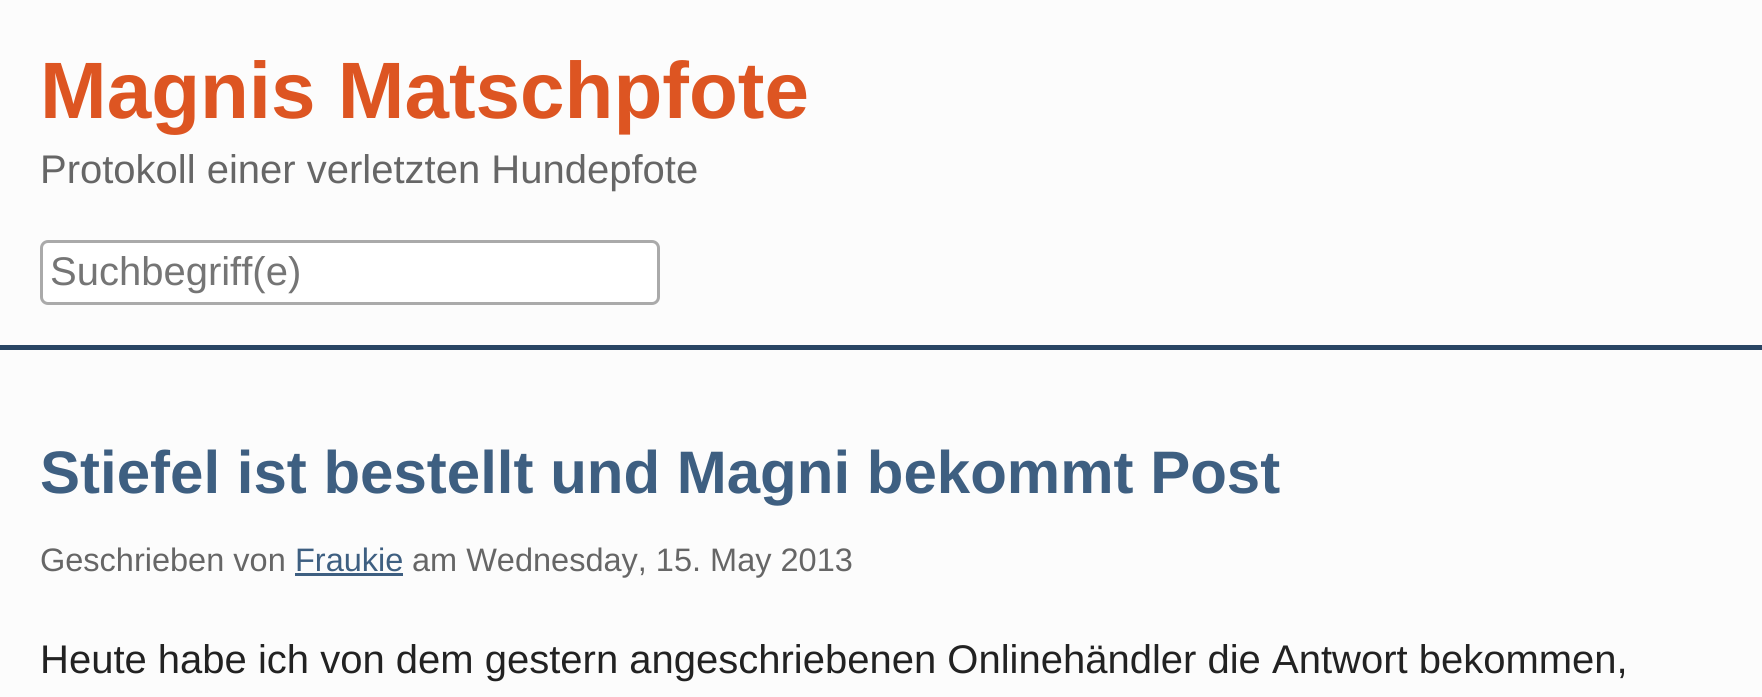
#include <cairo/cairo.h>
#include <math.h>
#include <stddef.h>

static cairo_t *cr;

static void use_color(int r, int g, int b) {
  cairo_set_source_rgb(cr, r / 255.0, g / 255.0, b / 255.0);
}

static void text(double x, double y, const char *s, const char *family, double size, int italic, int bold, int r, int g, int b) {
  cairo_select_font_face(cr, family, italic ? CAIRO_FONT_SLANT_ITALIC : CAIRO_FONT_SLANT_NORMAL,
    bold ? CAIRO_FONT_WEIGHT_BOLD : CAIRO_FONT_WEIGHT_NORMAL);
  cairo_set_font_size(cr, size);
  use_color(r, g, b);
  cairo_move_to(cr, x, y);
  cairo_show_text(cr, s);
}

static void box(double x, double y, double w, double h, int r, int g, int b) {
  use_color(r, g, b);
  cairo_rectangle(cr, x, y, w, h);
  cairo_fill(cr);
}

static void round_rect(double x, double y, double w, double h, double r) {
  cairo_new_sub_path(cr);
  cairo_arc(cr, x + w - r, y + h - r, r, 0, M_PI / 2);
  cairo_arc(cr, x + r, y + h - r, r, M_PI / 2, M_PI);
  cairo_arc(cr, x + r, y + r, r, M_PI, 1.5 * M_PI);
  cairo_arc(cr, x + w - r, y + r, r, 1.5 * M_PI, 2 * M_PI);
  cairo_close_path(cr);
}

static void draw(void) {
  use_color(252, 252, 252);
  cairo_paint(cr);
  box(0, 345, 1762, 5, 41, 69, 100);
  use_color(255, 255, 255);
  round_rect(41.5, 241.5, 617, 62, 6.5);
  cairo_fill_preserve(cr);
  use_color(170, 170, 170);
  cairo_set_line_width(cr, 3);
  cairo_stroke(cr);
  box(295, 573, 108, 3, 62, 95, 129);
  text(40, 118, "Magnis Matschpfote", "Liberation Sans", 80, 0, 1, 221, 85, 34);
  text(40, 183, "Protokoll einer verletzten Hundepfote", "Liberation Sans", 40, 0, 0, 102, 102, 102);
  text(50, 285, "Suchbegriff(e)", "Liberation Sans", 40, 0, 0, 117, 117, 117);
  text(40, 493, "Stiefel ist bestellt und Magni bekommt Post", "Liberation Sans", 60, 0, 1, 62, 95, 129);
  text(40, 571, "Geschrieben von", "Liberation Sans", 32.5, 0, 0, 102, 102, 102);
  text(295, 571, "Fraukie", "Liberation Sans", 32.5, 0, 0, 62, 95, 129);
  text(412, 571, "am Wednesday, 15. May 2013", "Liberation Sans", 32.5, 0, 0, 102, 102, 102);
  text(40, 673, "Heute habe ich von dem gestern angeschriebenen Onlinehändler die Antwort bekommen,", "Liberation Sans", 40, 0, 0, 34, 34, 34);
}

int main(void) {
  cairo_surface_t *surface = cairo_image_surface_create(CAIRO_FORMAT_RGB24, 1762, 697);
  cr = cairo_create(surface);
  cairo_font_options_t *options = cairo_font_options_create();
  cairo_font_options_set_hint_metrics(options, CAIRO_HINT_METRICS_OFF);
  cairo_font_options_set_hint_style(options, CAIRO_HINT_STYLE_NONE);
  cairo_set_font_options(cr, options);
  cairo_set_miter_limit(cr, 4);
  draw();
  cairo_surface_write_to_png(surface, "out.png");
  cairo_font_options_destroy(options);
  cairo_destroy(cr);
  cairo_surface_destroy(surface);
  return 0;
}
